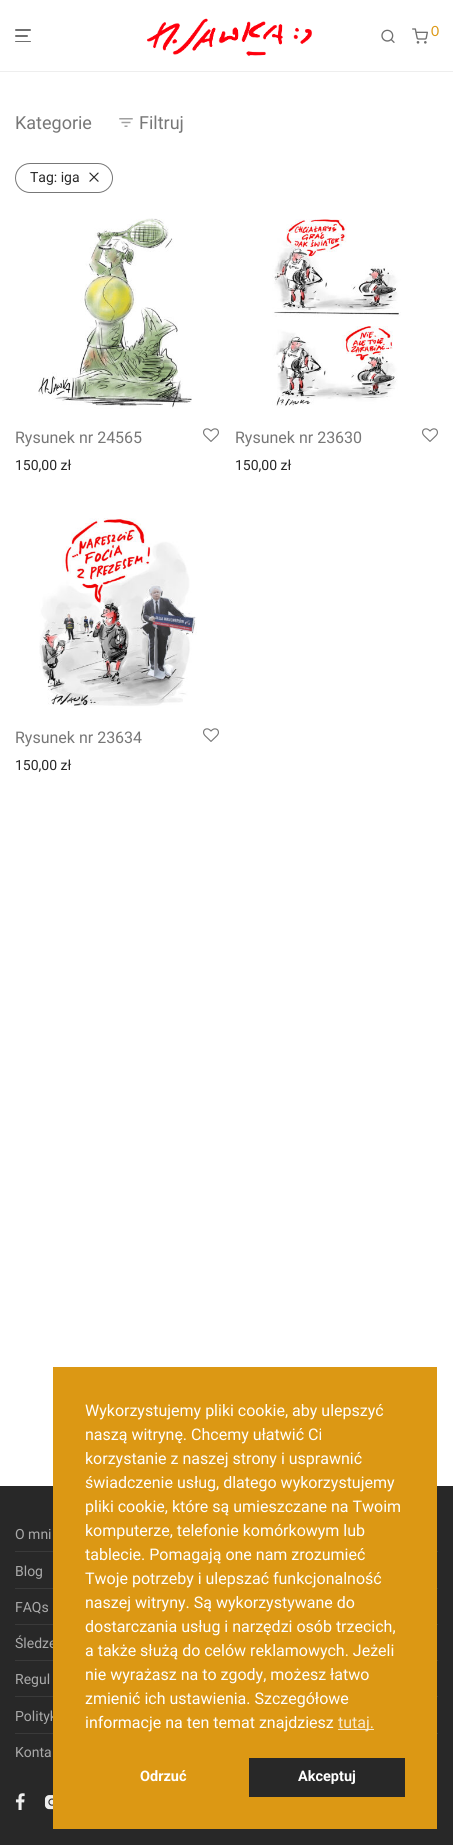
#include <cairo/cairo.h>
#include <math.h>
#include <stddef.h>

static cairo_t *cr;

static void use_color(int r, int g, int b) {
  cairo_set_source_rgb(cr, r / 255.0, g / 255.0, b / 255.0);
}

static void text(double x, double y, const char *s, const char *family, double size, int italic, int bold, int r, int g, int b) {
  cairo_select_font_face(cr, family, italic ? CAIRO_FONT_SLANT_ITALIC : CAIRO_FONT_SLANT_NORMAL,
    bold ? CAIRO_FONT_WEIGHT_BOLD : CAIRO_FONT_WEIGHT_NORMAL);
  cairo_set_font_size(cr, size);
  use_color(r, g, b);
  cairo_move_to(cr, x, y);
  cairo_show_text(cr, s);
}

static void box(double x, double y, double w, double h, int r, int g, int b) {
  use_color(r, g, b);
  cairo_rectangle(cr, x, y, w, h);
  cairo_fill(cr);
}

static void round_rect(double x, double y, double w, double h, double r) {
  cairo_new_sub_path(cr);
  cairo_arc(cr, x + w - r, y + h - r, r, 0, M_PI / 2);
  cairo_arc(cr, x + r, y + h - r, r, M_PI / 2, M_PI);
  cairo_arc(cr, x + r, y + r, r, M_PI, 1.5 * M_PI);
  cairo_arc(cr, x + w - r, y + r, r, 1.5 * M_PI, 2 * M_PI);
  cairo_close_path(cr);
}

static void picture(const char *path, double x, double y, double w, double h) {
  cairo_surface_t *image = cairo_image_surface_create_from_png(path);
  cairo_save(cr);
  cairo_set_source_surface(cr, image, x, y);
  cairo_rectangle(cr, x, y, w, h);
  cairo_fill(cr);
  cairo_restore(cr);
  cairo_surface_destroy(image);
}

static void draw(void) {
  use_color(255, 255, 255);
  cairo_paint(cr);
  box(0, 71, 453, 1, 238, 238, 238);
  use_color(112, 112, 112);
  round_rect(15, 29, 16, 2, 1);
  cairo_fill(cr);
  round_rect(15, 35, 13, 2, 1);
  cairo_fill(cr);
  round_rect(15, 41, 16, 1, 0.5);
  cairo_fill(cr);
  picture("img_01.png", 147, 18, 165, 38);
  picture("img_02.png", 381, 29, 14, 14);
  picture("img_03.png", 412, 28, 16, 16);
  picture("img_04.png", 119, 118, 14, 9);
  round_rect(15.5, 163.5, 97, 29, 14.5);
  use_color(119, 119, 119);
  cairo_set_line_width(cr, 1);
  cairo_stroke(cr);
  picture("img_05.png", 89, 172, 10, 10);
  picture("img_06.png", 38, 218, 154, 191);
  picture("img_07.png", 203, 428, 16, 14);
  picture("img_08.png", 272, 219, 129, 189);
  picture("img_07.png", 422, 428, 16, 14);
  picture("img_09.png", 39, 518, 158, 190);
  picture("img_07.png", 203, 728, 16, 14);
  box(0, 1486, 453, 359, 40, 40, 40);
  box(15, 1551, 423, 1, 58, 58, 58);
  box(15, 1588, 423, 1, 58, 58, 58);
  box(15, 1624, 423, 1, 58, 58, 58);
  box(15, 1660, 423, 1, 58, 58, 58);
  box(15, 1696, 423, 1, 58, 58, 58);
  box(15, 1733, 423, 1, 58, 58, 58);
  picture("img_10.png", 15, 1793, 10, 17);
  picture("img_11.png", 44, 1795, 9, 15);
  text(431, 36, "0", "Lato", 14, 0, 0, 220, 152, 20);
  text(15, 129, "Kategorie", "Roboto", 18, 0, 0, 119, 119, 119);
  text(139, 129, "Filtruj", "Roboto", 18, 0, 0, 119, 119, 119);
  text(30, 182, "Tag: iga", "Roboto", 14, 0, 0, 40, 40, 40);
  text(15, 443, "Rysunek nr 24565", "Roboto", 16, 0, 0, 119, 119, 119);
  text(15, 470, "150,00 zł", "Roboto", 14, 0, 0, 40, 40, 40);
  text(235, 443, "Rysunek nr 23630", "Roboto", 16, 0, 0, 119, 119, 119);
  text(235, 470, "150,00 zł", "Roboto", 14, 0, 0, 40, 40, 40);
  text(15, 743, "Rysunek nr 23634", "Roboto", 16, 0, 0, 119, 119, 119);
  text(15, 770, "150,00 zł", "Roboto", 14, 0, 0, 40, 40, 40);
  text(15, 1539, "O mni", "Roboto", 14, 0, 0, 170, 170, 170);
  text(15, 1576, "Blog", "Roboto", 14, 0, 0, 170, 170, 170);
  text(15, 1612, "FAQs", "Roboto", 14, 0, 0, 170, 170, 170);
  text(15, 1648, "Śledze", "Roboto", 14, 0, 0, 170, 170, 170);
  text(15, 1684, "Regul", "Roboto", 14, 0, 0, 170, 170, 170);
  text(15, 1721, "Polityk", "Roboto", 14, 0, 0, 170, 170, 170);
  text(15, 1757, "Konta", "Roboto", 14, 0, 0, 170, 170, 170);
  box(53, 1367, 384, 462, 220, 152, 20);
  text(85, 1416, "Wykorzystujemy pliki cookie, aby ulepszyć", "Roboto", 16, 0, 0, 255, 255, 255);
  text(85, 1440, "naszą witrynę. Chcemy ułatwić Ci", "Roboto", 16, 0, 0, 255, 255, 255);
  text(85, 1464, "korzystanie z naszej strony i usprawnić", "Roboto", 16, 0, 0, 255, 255, 255);
  text(85, 1488, "świadczenie usług, dlatego wykorzystujemy", "Roboto", 16, 0, 0, 255, 255, 255);
  text(85, 1512, "pliki cookie, które są umieszczane na Twoim", "Roboto", 16, 0, 0, 255, 255, 255);
  text(85, 1536, "komputerze, telefonie komórkowym lub", "Roboto", 16, 0, 0, 255, 255, 255);
  text(85, 1560, "tablecie. Pomagają one nam zrozumieć", "Roboto", 16, 0, 0, 255, 255, 255);
  text(85, 1584, "Twoje potrzeby i ulepszać funkcjonalność", "Roboto", 16, 0, 0, 255, 255, 255);
  text(85, 1608, "naszej witryny. Są wykorzystywane do", "Roboto", 16, 0, 0, 255, 255, 255);
  text(85, 1632, "dostarczania usług i narzędzi osób trzecich,", "Roboto", 16, 0, 0, 255, 255, 255);
  text(85, 1656, "a także służą do celów reklamowych. Jeżeli", "Roboto", 16, 0, 0, 255, 255, 255);
  text(85, 1680, "nie wyrażasz na to zgody, możesz łatwo", "Roboto", 16, 0, 0, 255, 255, 255);
  text(85, 1704, "zmienić ich ustawienia. Szczegółowe", "Roboto", 16, 0, 0, 255, 255, 255);
  text(85, 1728, "informacje na ten temat znajdziesz", "Roboto", 16, 0, 0, 255, 255, 255);
  box(338, 1729, 36, 1, 248, 234, 208);
  text(338, 1728, "tutaj.", "Roboto", 16, 0, 0, 248, 234, 208);
  text(140, 1781, "Odrzuć", "Roboto", 14.5, 0, 1, 255, 255, 255);
  box(249, 1758, 156, 39, 40, 40, 40);
  text(298, 1781, "Akceptuj", "Roboto", 14.5, 0, 1, 255, 255, 255);
}

int main(void) {
  cairo_surface_t *surface = cairo_image_surface_create(CAIRO_FORMAT_RGB24, 453, 1845);
  cr = cairo_create(surface);
  cairo_font_options_t *options = cairo_font_options_create();
  cairo_font_options_set_hint_metrics(options, CAIRO_HINT_METRICS_OFF);
  cairo_font_options_set_hint_style(options, CAIRO_HINT_STYLE_NONE);
  cairo_set_font_options(cr, options);
  cairo_set_miter_limit(cr, 4);
  draw();
  cairo_surface_write_to_png(surface, "out.png");
  cairo_font_options_destroy(options);
  cairo_destroy(cr);
  cairo_surface_destroy(surface);
  return 0;
}
